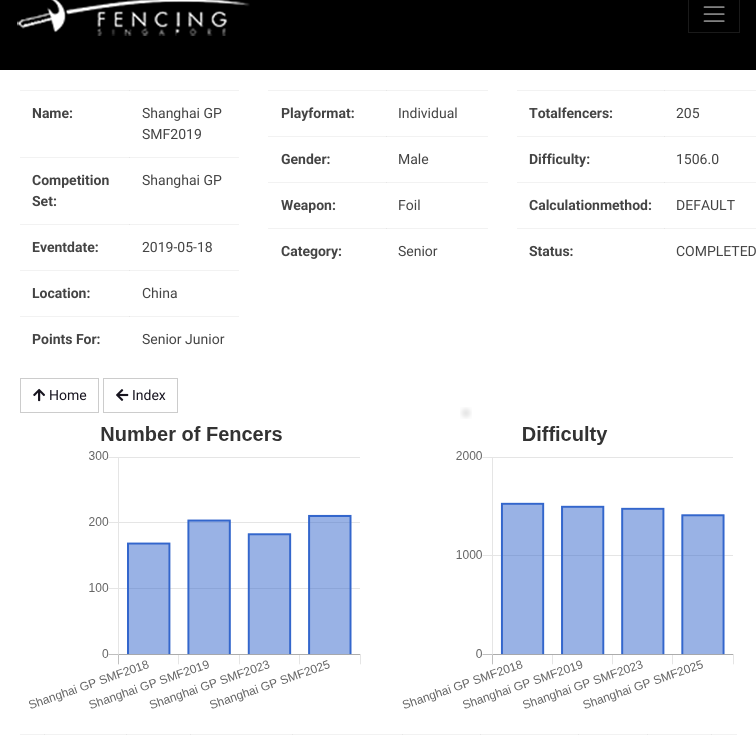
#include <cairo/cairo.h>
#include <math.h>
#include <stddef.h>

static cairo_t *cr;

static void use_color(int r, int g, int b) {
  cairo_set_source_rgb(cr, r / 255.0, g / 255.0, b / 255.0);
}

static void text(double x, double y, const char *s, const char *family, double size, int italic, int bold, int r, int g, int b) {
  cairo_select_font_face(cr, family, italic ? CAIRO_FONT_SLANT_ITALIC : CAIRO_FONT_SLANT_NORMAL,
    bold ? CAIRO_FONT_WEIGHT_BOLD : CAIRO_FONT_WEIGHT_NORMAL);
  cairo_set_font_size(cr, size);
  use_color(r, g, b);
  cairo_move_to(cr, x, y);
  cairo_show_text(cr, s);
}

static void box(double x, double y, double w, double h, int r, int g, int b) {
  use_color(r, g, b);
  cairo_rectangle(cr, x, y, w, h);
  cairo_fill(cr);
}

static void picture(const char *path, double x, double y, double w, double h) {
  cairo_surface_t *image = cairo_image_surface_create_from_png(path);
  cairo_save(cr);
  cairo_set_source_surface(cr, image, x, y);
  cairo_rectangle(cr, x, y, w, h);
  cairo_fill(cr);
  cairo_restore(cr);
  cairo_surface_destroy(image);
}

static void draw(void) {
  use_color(255, 255, 255);
  cairo_paint(cr);
  box(517, 90, 239, 1, 242, 242, 242);
  box(517, 136, 239, 1, 242, 242, 242);
  box(517, 182, 239, 1, 242, 242, 242);
  box(517, 228, 239, 1, 242, 242, 242);
  box(268, 90, 220, 1, 242, 242, 242);
  box(268, 136, 220, 1, 242, 242, 242);
  box(268, 182, 220, 1, 242, 242, 242);
  box(268, 228, 220, 1, 242, 242, 242);
  box(20, 90, 219, 1, 242, 242, 242);
  box(20, 157, 219, 1, 242, 242, 242);
  box(20, 224, 219, 1, 242, 242, 242);
  box(20, 270, 219, 1, 242, 242, 242);
  box(20, 316, 219, 1, 242, 242, 242);
  box(20, 734, 717, 1, 242, 242, 242);
  box(44, 734, 1, 1, 230, 230, 230);
  box(126, 734, 1, 1, 230, 230, 230);
  box(190, 734, 1, 1, 230, 230, 230);
  box(292, 734, 1, 1, 230, 230, 230);
  box(402, 734, 1, 1, 230, 230, 230);
  box(480, 734, 1, 1, 230, 230, 230);
  box(578, 734, 1, 1, 230, 230, 230);
  box(647, 734, 1, 1, 230, 230, 230);
  picture("img_01.png", 460, 407, 12, 12);
  box(0, 0, 756, 70, 0, 0, 0);
  picture("img_02.png", 17, 0, 233, 36);
  cairo_rectangle(cr, 688.5, -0.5, 51, 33);
  use_color(26, 26, 26);
  cairo_set_line_width(cr, 1);
  cairo_stroke(cr);
  picture("img_03.png", 703, 6, 22, 16);
  box(129, 90, 1, 1, 230, 230, 230);
  box(129, 157, 1, 1, 230, 230, 230);
  box(129, 224, 1, 1, 230, 230, 230);
  box(129, 270, 1, 1, 230, 230, 230);
  box(129, 316, 1, 1, 230, 230, 230);
  box(386, 90, 1, 1, 230, 230, 230);
  box(386, 136, 1, 1, 230, 230, 230);
  box(386, 182, 1, 1, 230, 230, 230);
  box(386, 228, 1, 1, 230, 230, 230);
  box(664, 90, 1, 1, 230, 230, 230);
  box(664, 136, 1, 1, 230, 230, 230);
  box(664, 182, 1, 1, 230, 230, 230);
  box(664, 228, 1, 1, 230, 230, 230);
  cairo_rectangle(cr, 20.5, 378.5, 78, 34);
  use_color(204, 204, 204);
  cairo_stroke(cr);
  picture("img_04.png", 33, 388, 12, 14);
  cairo_rectangle(cr, 103.5, 378.5, 74, 34);
  cairo_stroke(cr);
  picture("img_05.png", 116, 389, 13, 12);
  picture("img_06.png", 29, 426, 332, 283);
  picture("img_07.png", 402, 426, 332, 283);
  box(711, 734, 1, 1, 230, 230, 230);
  text(32, 118, "Name:", "Roboto", 14, 0, 1, 68, 68, 68);
  text(142, 118, "Shanghai GP", "Roboto", 14, 0, 0, 68, 68, 68);
  text(142, 139, "SMF2019", "Roboto", 14, 0, 0, 68, 68, 68);
  text(32, 185, "Competition", "Roboto", 14, 0, 1, 68, 68, 68);
  text(32, 206, "Set:", "Roboto", 14, 0, 1, 68, 68, 68);
  text(142, 185, "Shanghai GP", "Roboto", 14, 0, 0, 68, 68, 68);
  text(32, 252, "Eventdate:", "Roboto", 14, 0, 1, 68, 68, 68);
  text(142, 252, "2019-05-18", "Roboto", 14, 0, 0, 68, 68, 68);
  text(32, 298, "Location:", "Roboto", 14, 0, 1, 68, 68, 68);
  text(142, 298, "China", "Roboto", 14, 0, 0, 68, 68, 68);
  text(32, 344, "Points For:", "Roboto", 14, 0, 1, 68, 68, 68);
  text(142, 344, "Senior Junior", "Roboto", 14, 0, 0, 68, 68, 68);
  text(281, 118, "Playformat:", "Roboto", 14, 0, 1, 68, 68, 68);
  text(398, 118, "Individual", "Roboto", 14, 0, 0, 68, 68, 68);
  text(281, 164, "Gender:", "Roboto", 14, 0, 1, 68, 68, 68);
  text(398, 164, "Male", "Roboto", 14, 0, 0, 68, 68, 68);
  text(281, 210, "Weapon:", "Roboto", 14, 0, 1, 68, 68, 68);
  text(398, 210, "Foil", "Roboto", 14, 0, 0, 68, 68, 68);
  text(281, 256, "Category:", "Roboto", 14, 0, 1, 68, 68, 68);
  text(398, 256, "Senior", "Roboto", 14, 0, 0, 68, 68, 68);
  text(529, 118, "Totalfencers:", "Roboto", 14, 0, 1, 68, 68, 68);
  text(676, 118, "205", "Roboto", 14, 0, 0, 68, 68, 68);
  text(529, 164, "Difficulty:", "Roboto", 14, 0, 1, 68, 68, 68);
  text(676, 164, "1506.0", "Roboto", 14, 0, 0, 68, 68, 68);
  text(529, 210, "Calculationmethod:", "Roboto", 14, 0, 1, 68, 68, 68);
  text(676, 210, "DEFAULT", "Roboto", 14, 0, 0, 68, 68, 68);
  text(529, 256, "Status:", "Roboto", 14, 0, 1, 68, 68, 68);
  text(676, 256, "COMPLETED", "Roboto", 14, 0, 0, 68, 68, 68);
  text(49, 400, "Home", "Roboto", 14, 0, 0, 23, 20, 31);
  text(132, 400, "Index", "Roboto", 14, 0, 0, 23, 20, 31);
}

int main(void) {
  cairo_surface_t *surface = cairo_image_surface_create(CAIRO_FORMAT_RGB24, 756, 756);
  cr = cairo_create(surface);
  cairo_font_options_t *options = cairo_font_options_create();
  cairo_font_options_set_hint_metrics(options, CAIRO_HINT_METRICS_OFF);
  cairo_font_options_set_hint_style(options, CAIRO_HINT_STYLE_NONE);
  cairo_set_font_options(cr, options);
  cairo_set_miter_limit(cr, 4);
  draw();
  cairo_surface_write_to_png(surface, "out.png");
  cairo_font_options_destroy(options);
  cairo_destroy(cr);
  cairo_surface_destroy(surface);
  return 0;
}
